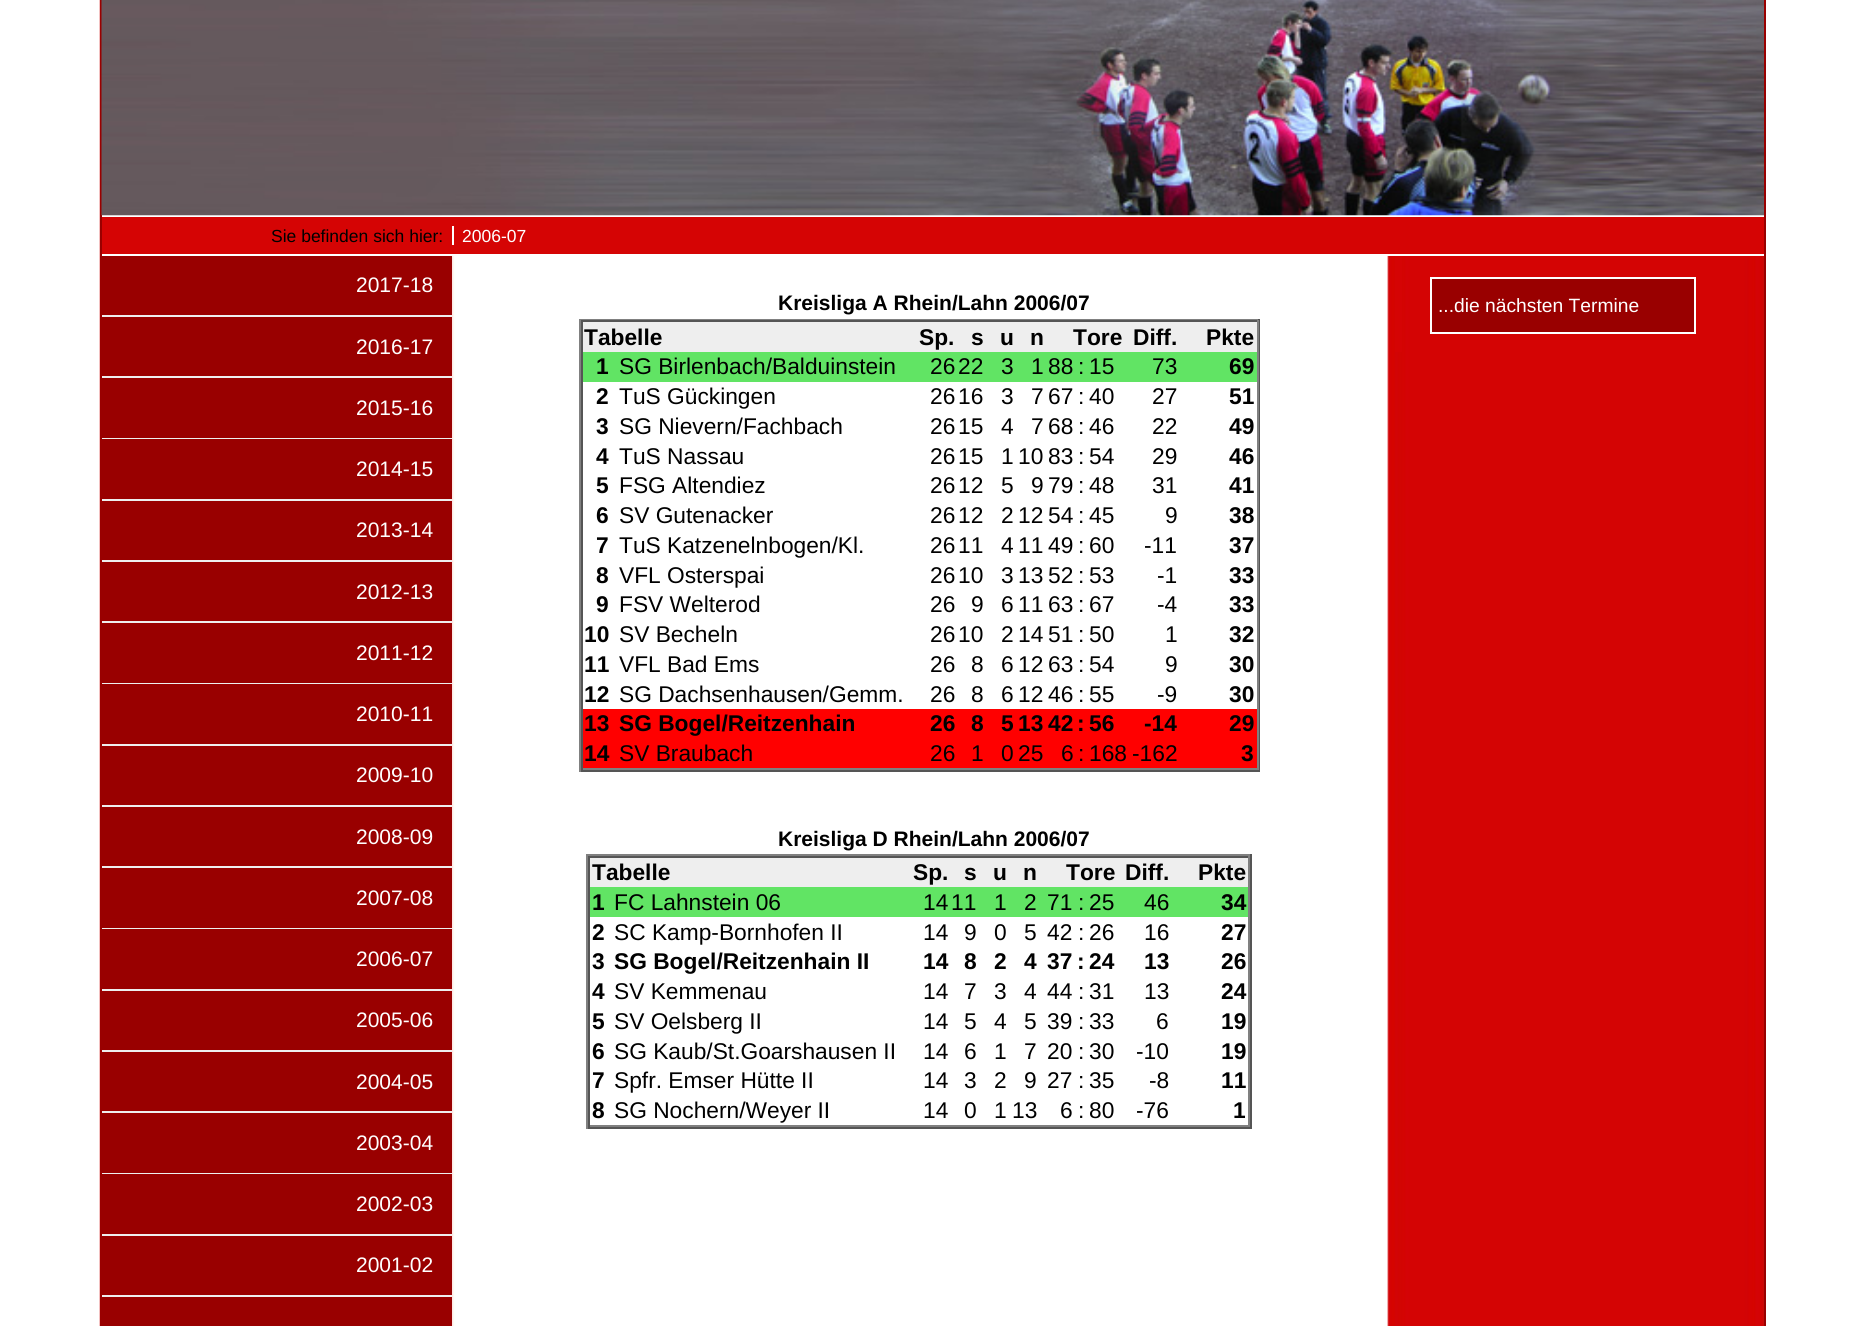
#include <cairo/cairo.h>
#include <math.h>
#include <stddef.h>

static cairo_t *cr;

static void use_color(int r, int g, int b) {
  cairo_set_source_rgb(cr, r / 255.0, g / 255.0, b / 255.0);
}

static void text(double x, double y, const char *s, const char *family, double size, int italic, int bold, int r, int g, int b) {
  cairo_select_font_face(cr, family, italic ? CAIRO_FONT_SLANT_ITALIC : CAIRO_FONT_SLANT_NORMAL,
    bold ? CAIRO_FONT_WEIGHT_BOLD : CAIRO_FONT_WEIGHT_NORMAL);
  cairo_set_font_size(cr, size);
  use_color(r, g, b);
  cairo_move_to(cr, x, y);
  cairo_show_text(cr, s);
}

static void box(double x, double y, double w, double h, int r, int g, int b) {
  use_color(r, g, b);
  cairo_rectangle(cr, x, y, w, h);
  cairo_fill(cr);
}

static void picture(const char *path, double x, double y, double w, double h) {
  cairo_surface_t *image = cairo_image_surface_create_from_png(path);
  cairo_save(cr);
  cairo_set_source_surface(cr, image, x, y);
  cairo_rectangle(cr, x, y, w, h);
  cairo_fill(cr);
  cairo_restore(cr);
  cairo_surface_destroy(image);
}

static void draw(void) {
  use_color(255, 255, 255);
  cairo_paint(cr);
  picture("img_01.png", 99, 0, 1665, 1326);
  box(1764, 0, 2, 1326, 153, 0, 0);
  box(100, 0, 2, 1326, 153, 0, 0);
  box(102, 215, 1662, 2, 255, 255, 255);
  picture("img_02.png", 101, 0, 1663, 216);
  box(102, 217, 1662, 37, 213, 4, 4);
  box(102, 254, 1662, 2, 255, 255, 255);
  box(452, 226, 2, 19, 255, 255, 255);
  box(102, 256, 350, 1070, 153, 0, 0);
  box(102, 315, 350, 2, 238, 238, 238);
  box(102, 376, 350, 2, 238, 238, 238);
  box(102, 438, 350, 1, 238, 238, 238);
  box(102, 499, 350, 2, 238, 238, 238);
  box(102, 560, 350, 2, 238, 238, 238);
  box(102, 621, 350, 2, 238, 238, 238);
  box(102, 683, 350, 1, 238, 238, 238);
  box(102, 744, 350, 2, 238, 238, 238);
  box(102, 805, 350, 2, 238, 238, 238);
  box(102, 866, 350, 2, 238, 238, 238);
  box(102, 928, 350, 1, 238, 238, 238);
  box(102, 989, 350, 2, 238, 238, 238);
  box(102, 1050, 350, 2, 238, 238, 238);
  box(102, 1111, 350, 2, 238, 238, 238);
  box(102, 1173, 350, 1, 238, 238, 238);
  box(102, 1234, 350, 2, 238, 238, 238);
  box(102, 1295, 350, 2, 238, 238, 238);
  box(579, 319, 681, 1, 128, 128, 128);
  box(1258, 319, 2, 453, 85, 85, 85);
  box(579, 770, 681, 2, 85, 85, 85);
  box(579, 319, 2, 453, 128, 128, 128);
  box(581, 320, 677, 2, 85, 85, 85);
  box(1257, 320, 2, 450, 128, 128, 128);
  box(581, 768, 677, 2, 128, 128, 128);
  box(581, 320, 2, 450, 85, 85, 85);
  box(583, 322, 674, 30, 238, 238, 238);
  box(583, 352, 674, 30, 97, 228, 100);
  box(583, 709, 674, 59, 255, 0, 0);
  box(586, 854, 665, 2, 128, 128, 128);
  box(1250, 854, 2, 275, 85, 85, 85);
  box(586, 1127, 665, 2, 85, 85, 85);
  box(586, 854, 2, 275, 128, 128, 128);
  box(588, 856, 662, 2, 85, 85, 85);
  box(1248, 856, 2, 271, 128, 128, 128);
  box(588, 1125, 662, 2, 128, 128, 128);
  box(588, 856, 2, 271, 85, 85, 85);
  box(590, 858, 658, 29, 238, 238, 238);
  box(590, 887, 658, 30, 97, 228, 100);
  box(1395, 256, 7, 96, 213, 4, 4);
  use_color(153, 0, 0);
  cairo_rectangle(cr, 1431, 278, 264, 55);
  cairo_fill_preserve(cr);
  use_color(255, 255, 255);
  cairo_stroke(cr);
  text(271, 242, "Sie befinden sich hier:", "Liberation Sans", 17.5, 0, 0, 0, 0, 0);
  text(462, 242, "2006-07", "Liberation Sans", 17.5, 0, 0, 255, 255, 255);
  text(356, 292, "2017-18", "Liberation Sans", 21, 0, 0, 255, 255, 255);
  text(356, 354, "2016-17", "Liberation Sans", 21, 0, 0, 255, 255, 255);
  text(356, 415, "2015-16", "Liberation Sans", 21, 0, 0, 255, 255, 255);
  text(356, 476, "2014-15", "Liberation Sans", 21, 0, 0, 255, 255, 255);
  text(356, 537, "2013-14", "Liberation Sans", 21, 0, 0, 255, 255, 255);
  text(356, 599, "2012-13", "Liberation Sans", 21, 0, 0, 255, 255, 255);
  text(356, 660, "2011-12", "Liberation Sans", 21, 0, 0, 255, 255, 255);
  text(356, 721, "2010-11", "Liberation Sans", 21, 0, 0, 255, 255, 255);
  text(356, 782, "2009-10", "Liberation Sans", 21, 0, 0, 255, 255, 255);
  text(356, 844, "2008-09", "Liberation Sans", 21, 0, 0, 255, 255, 255);
  text(356, 905, "2007-08", "Liberation Sans", 21, 0, 0, 255, 255, 255);
  text(356, 966, "2006-07", "Liberation Sans", 21, 0, 0, 255, 255, 255);
  text(356, 1027, "2005-06", "Liberation Sans", 21, 0, 0, 255, 255, 255);
  text(356, 1089, "2004-05", "Liberation Sans", 21, 0, 0, 255, 255, 255);
  text(356, 1150, "2003-04", "Liberation Sans", 21, 0, 0, 255, 255, 255);
  text(356, 1211, "2002-03", "Liberation Sans", 21, 0, 0, 255, 255, 255);
  text(356, 1272, "2001-02", "Liberation Sans", 21, 0, 0, 255, 255, 255);
  text(778, 310, "Kreisliga A Rhein/Lahn 2006/07", "Liberation Sans", 21, 0, 1, 0, 0, 0);
  text(584, 345, "Tabelle", "Liberation Sans", 22.75, 0, 1, 0, 0, 0);
  text(919, 345, "Sp.", "Liberation Sans", 22.75, 0, 1, 0, 0, 0);
  text(971, 345, "s", "Liberation Sans", 22.75, 0, 1, 0, 0, 0);
  text(1000, 345, "u", "Liberation Sans", 22.75, 0, 1, 0, 0, 0);
  text(1030, 345, "n", "Liberation Sans", 22.75, 0, 1, 0, 0, 0);
  text(1073, 345, "Tore", "Liberation Sans", 22.75, 0, 1, 0, 0, 0);
  text(1133, 345, "Diff.", "Liberation Sans", 22.75, 0, 1, 0, 0, 0);
  text(1206, 345, "Pkte", "Liberation Sans", 22.75, 0, 1, 0, 0, 0);
  text(596, 374, "1", "Liberation Sans", 22.75, 0, 1, 0, 0, 0);
  text(619, 374, "SG Birlenbach/Balduinstein", "Liberation Sans", 22.75, 0, 0, 0, 0, 0);
  text(930, 374, "26", "Liberation Sans", 22.75, 0, 0, 0, 0, 0);
  text(958, 374, "22", "Liberation Sans", 22.75, 0, 0, 0, 0, 0);
  text(1001, 374, "3", "Liberation Sans", 22.75, 0, 0, 0, 0, 0);
  text(1031, 374, "1", "Liberation Sans", 22.75, 0, 0, 0, 0, 0);
  text(1048, 374, "88", "Liberation Sans", 22.75, 0, 0, 0, 0, 0);
  text(1078, 374, ":", "Liberation Sans", 22.75, 0, 0, 0, 0, 0);
  text(1089, 374, "15", "Liberation Sans", 22.75, 0, 0, 0, 0, 0);
  text(1152, 374, "73", "Liberation Sans", 22.75, 0, 0, 0, 0, 0);
  text(1229, 374, "69", "Liberation Sans", 22.75, 0, 1, 0, 0, 0);
  text(596, 404, "2", "Liberation Sans", 22.75, 0, 1, 0, 0, 0);
  text(619, 404, "TuS Gückingen", "Liberation Sans", 22.75, 0, 0, 0, 0, 0);
  text(930, 404, "26", "Liberation Sans", 22.75, 0, 0, 0, 0, 0);
  text(958, 404, "16", "Liberation Sans", 22.75, 0, 0, 0, 0, 0);
  text(1001, 404, "3", "Liberation Sans", 22.75, 0, 0, 0, 0, 0);
  text(1031, 404, "7", "Liberation Sans", 22.75, 0, 0, 0, 0, 0);
  text(1048, 404, "67", "Liberation Sans", 22.75, 0, 0, 0, 0, 0);
  text(1078, 404, ":", "Liberation Sans", 22.75, 0, 0, 0, 0, 0);
  text(1089, 404, "40", "Liberation Sans", 22.75, 0, 0, 0, 0, 0);
  text(1152, 404, "27", "Liberation Sans", 22.75, 0, 0, 0, 0, 0);
  text(1229, 404, "51", "Liberation Sans", 22.75, 0, 1, 0, 0, 0);
  text(596, 434, "3", "Liberation Sans", 22.75, 0, 1, 0, 0, 0);
  text(619, 434, "SG Nievern/Fachbach", "Liberation Sans", 22.75, 0, 0, 0, 0, 0);
  text(930, 434, "26", "Liberation Sans", 22.75, 0, 0, 0, 0, 0);
  text(958, 434, "15", "Liberation Sans", 22.75, 0, 0, 0, 0, 0);
  text(1001, 434, "4", "Liberation Sans", 22.75, 0, 0, 0, 0, 0);
  text(1031, 434, "7", "Liberation Sans", 22.75, 0, 0, 0, 0, 0);
  text(1048, 434, "68", "Liberation Sans", 22.75, 0, 0, 0, 0, 0);
  text(1078, 434, ":", "Liberation Sans", 22.75, 0, 0, 0, 0, 0);
  text(1089, 434, "46", "Liberation Sans", 22.75, 0, 0, 0, 0, 0);
  text(1152, 434, "22", "Liberation Sans", 22.75, 0, 0, 0, 0, 0);
  text(1229, 434, "49", "Liberation Sans", 22.75, 0, 1, 0, 0, 0);
  text(596, 464, "4", "Liberation Sans", 22.75, 0, 1, 0, 0, 0);
  text(619, 464, "TuS Nassau", "Liberation Sans", 22.75, 0, 0, 0, 0, 0);
  text(930, 464, "26", "Liberation Sans", 22.75, 0, 0, 0, 0, 0);
  text(958, 464, "15", "Liberation Sans", 22.75, 0, 0, 0, 0, 0);
  text(1001, 464, "1", "Liberation Sans", 22.75, 0, 0, 0, 0, 0);
  text(1018, 464, "10", "Liberation Sans", 22.75, 0, 0, 0, 0, 0);
  text(1048, 464, "83", "Liberation Sans", 22.75, 0, 0, 0, 0, 0);
  text(1078, 464, ":", "Liberation Sans", 22.75, 0, 0, 0, 0, 0);
  text(1089, 464, "54", "Liberation Sans", 22.75, 0, 0, 0, 0, 0);
  text(1152, 464, "29", "Liberation Sans", 22.75, 0, 0, 0, 0, 0);
  text(1229, 464, "46", "Liberation Sans", 22.75, 0, 1, 0, 0, 0);
  text(596, 493, "5", "Liberation Sans", 22.75, 0, 1, 0, 0, 0);
  text(619, 493, "FSG Altendiez", "Liberation Sans", 22.75, 0, 0, 0, 0, 0);
  text(930, 493, "26", "Liberation Sans", 22.75, 0, 0, 0, 0, 0);
  text(958, 493, "12", "Liberation Sans", 22.75, 0, 0, 0, 0, 0);
  text(1001, 493, "5", "Liberation Sans", 22.75, 0, 0, 0, 0, 0);
  text(1031, 493, "9", "Liberation Sans", 22.75, 0, 0, 0, 0, 0);
  text(1048, 493, "79", "Liberation Sans", 22.75, 0, 0, 0, 0, 0);
  text(1078, 493, ":", "Liberation Sans", 22.75, 0, 0, 0, 0, 0);
  text(1089, 493, "48", "Liberation Sans", 22.75, 0, 0, 0, 0, 0);
  text(1152, 493, "31", "Liberation Sans", 22.75, 0, 0, 0, 0, 0);
  text(1229, 493, "41", "Liberation Sans", 22.75, 0, 1, 0, 0, 0);
  text(596, 523, "6", "Liberation Sans", 22.75, 0, 1, 0, 0, 0);
  text(619, 523, "SV Gutenacker", "Liberation Sans", 22.75, 0, 0, 0, 0, 0);
  text(930, 523, "26", "Liberation Sans", 22.75, 0, 0, 0, 0, 0);
  text(958, 523, "12", "Liberation Sans", 22.75, 0, 0, 0, 0, 0);
  text(1001, 523, "2", "Liberation Sans", 22.75, 0, 0, 0, 0, 0);
  text(1018, 523, "12", "Liberation Sans", 22.75, 0, 0, 0, 0, 0);
  text(1048, 523, "54", "Liberation Sans", 22.75, 0, 0, 0, 0, 0);
  text(1078, 523, ":", "Liberation Sans", 22.75, 0, 0, 0, 0, 0);
  text(1089, 523, "45", "Liberation Sans", 22.75, 0, 0, 0, 0, 0);
  text(1165, 523, "9", "Liberation Sans", 22.75, 0, 0, 0, 0, 0);
  text(1229, 523, "38", "Liberation Sans", 22.75, 0, 1, 0, 0, 0);
  text(596, 553, "7", "Liberation Sans", 22.75, 0, 1, 0, 0, 0);
  text(619, 553, "TuS Katzenelnbogen/Kl.", "Liberation Sans", 22.75, 0, 0, 0, 0, 0);
  text(930, 553, "26", "Liberation Sans", 22.75, 0, 0, 0, 0, 0);
  text(958, 553, "11", "Liberation Sans", 22.75, 0, 0, 0, 0, 0);
  text(1001, 553, "4", "Liberation Sans", 22.75, 0, 0, 0, 0, 0);
  text(1018, 553, "11", "Liberation Sans", 22.75, 0, 0, 0, 0, 0);
  text(1048, 553, "49", "Liberation Sans", 22.75, 0, 0, 0, 0, 0);
  text(1078, 553, ":", "Liberation Sans", 22.75, 0, 0, 0, 0, 0);
  text(1089, 553, "60", "Liberation Sans", 22.75, 0, 0, 0, 0, 0);
  text(1144, 553, "-11", "Liberation Sans", 22.75, 0, 0, 0, 0, 0);
  text(1229, 553, "37", "Liberation Sans", 22.75, 0, 1, 0, 0, 0);
  text(596, 583, "8", "Liberation Sans", 22.75, 0, 1, 0, 0, 0);
  text(619, 583, "VFL Osterspai", "Liberation Sans", 22.75, 0, 0, 0, 0, 0);
  text(930, 583, "26", "Liberation Sans", 22.75, 0, 0, 0, 0, 0);
  text(958, 583, "10", "Liberation Sans", 22.75, 0, 0, 0, 0, 0);
  text(1001, 583, "3", "Liberation Sans", 22.75, 0, 0, 0, 0, 0);
  text(1018, 583, "13", "Liberation Sans", 22.75, 0, 0, 0, 0, 0);
  text(1048, 583, "52", "Liberation Sans", 22.75, 0, 0, 0, 0, 0);
  text(1078, 583, ":", "Liberation Sans", 22.75, 0, 0, 0, 0, 0);
  text(1089, 583, "53", "Liberation Sans", 22.75, 0, 0, 0, 0, 0);
  text(1157, 583, "-1", "Liberation Sans", 22.75, 0, 0, 0, 0, 0);
  text(1229, 583, "33", "Liberation Sans", 22.75, 0, 1, 0, 0, 0);
  text(596, 612, "9", "Liberation Sans", 22.75, 0, 1, 0, 0, 0);
  text(619, 612, "FSV Welterod", "Liberation Sans", 22.75, 0, 0, 0, 0, 0);
  text(930, 612, "26", "Liberation Sans", 22.75, 0, 0, 0, 0, 0);
  text(971, 612, "9", "Liberation Sans", 22.75, 0, 0, 0, 0, 0);
  text(1001, 612, "6", "Liberation Sans", 22.75, 0, 0, 0, 0, 0);
  text(1018, 612, "11", "Liberation Sans", 22.75, 0, 0, 0, 0, 0);
  text(1048, 612, "63", "Liberation Sans", 22.75, 0, 0, 0, 0, 0);
  text(1078, 612, ":", "Liberation Sans", 22.75, 0, 0, 0, 0, 0);
  text(1089, 612, "67", "Liberation Sans", 22.75, 0, 0, 0, 0, 0);
  text(1157, 612, "-4", "Liberation Sans", 22.75, 0, 0, 0, 0, 0);
  text(1229, 612, "33", "Liberation Sans", 22.75, 0, 1, 0, 0, 0);
  text(584, 642, "10", "Liberation Sans", 22.75, 0, 1, 0, 0, 0);
  text(619, 642, "SV Becheln", "Liberation Sans", 22.75, 0, 0, 0, 0, 0);
  text(930, 642, "26", "Liberation Sans", 22.75, 0, 0, 0, 0, 0);
  text(958, 642, "10", "Liberation Sans", 22.75, 0, 0, 0, 0, 0);
  text(1001, 642, "2", "Liberation Sans", 22.75, 0, 0, 0, 0, 0);
  text(1018, 642, "14", "Liberation Sans", 22.75, 0, 0, 0, 0, 0);
  text(1048, 642, "51", "Liberation Sans", 22.75, 0, 0, 0, 0, 0);
  text(1078, 642, ":", "Liberation Sans", 22.75, 0, 0, 0, 0, 0);
  text(1089, 642, "50", "Liberation Sans", 22.75, 0, 0, 0, 0, 0);
  text(1165, 642, "1", "Liberation Sans", 22.75, 0, 0, 0, 0, 0);
  text(1229, 642, "32", "Liberation Sans", 22.75, 0, 1, 0, 0, 0);
  text(584, 672, "11", "Liberation Sans", 22.75, 0, 1, 0, 0, 0);
  text(619, 672, "VFL Bad Ems", "Liberation Sans", 22.75, 0, 0, 0, 0, 0);
  text(930, 672, "26", "Liberation Sans", 22.75, 0, 0, 0, 0, 0);
  text(971, 672, "8", "Liberation Sans", 22.75, 0, 0, 0, 0, 0);
  text(1001, 672, "6", "Liberation Sans", 22.75, 0, 0, 0, 0, 0);
  text(1018, 672, "12", "Liberation Sans", 22.75, 0, 0, 0, 0, 0);
  text(1048, 672, "63", "Liberation Sans", 22.75, 0, 0, 0, 0, 0);
  text(1078, 672, ":", "Liberation Sans", 22.75, 0, 0, 0, 0, 0);
  text(1089, 672, "54", "Liberation Sans", 22.75, 0, 0, 0, 0, 0);
  text(1165, 672, "9", "Liberation Sans", 22.75, 0, 0, 0, 0, 0);
  text(1229, 672, "30", "Liberation Sans", 22.75, 0, 1, 0, 0, 0);
  text(584, 702, "12", "Liberation Sans", 22.75, 0, 1, 0, 0, 0);
  text(619, 702, "SG Dachsenhausen/Gemm.", "Liberation Sans", 22.75, 0, 0, 0, 0, 0);
  text(930, 702, "26", "Liberation Sans", 22.75, 0, 0, 0, 0, 0);
  text(971, 702, "8", "Liberation Sans", 22.75, 0, 0, 0, 0, 0);
  text(1001, 702, "6", "Liberation Sans", 22.75, 0, 0, 0, 0, 0);
  text(1018, 702, "12", "Liberation Sans", 22.75, 0, 0, 0, 0, 0);
  text(1048, 702, "46", "Liberation Sans", 22.75, 0, 0, 0, 0, 0);
  text(1078, 702, ":", "Liberation Sans", 22.75, 0, 0, 0, 0, 0);
  text(1089, 702, "55", "Liberation Sans", 22.75, 0, 0, 0, 0, 0);
  text(1157, 702, "-9", "Liberation Sans", 22.75, 0, 0, 0, 0, 0);
  text(1229, 702, "30", "Liberation Sans", 22.75, 0, 1, 0, 0, 0);
  text(584, 731, "13", "Liberation Sans", 22.75, 0, 1, 0, 0, 0);
  text(619, 731, "SG Bogel/Reitzenhain", "Liberation Sans", 22.75, 0, 1, 0, 0, 0);
  text(930, 731, "26", "Liberation Sans", 22.75, 0, 1, 0, 0, 0);
  text(971, 731, "8", "Liberation Sans", 22.75, 0, 1, 0, 0, 0);
  text(1001, 731, "5", "Liberation Sans", 22.75, 0, 1, 0, 0, 0);
  text(1018, 731, "13", "Liberation Sans", 22.75, 0, 1, 0, 0, 0);
  text(1048, 731, "42", "Liberation Sans", 22.75, 0, 1, 0, 0, 0);
  text(1077, 731, ":", "Liberation Sans", 22.75, 0, 1, 0, 0, 0);
  text(1089, 731, "56", "Liberation Sans", 22.75, 0, 1, 0, 0, 0);
  text(1144, 731, "-14", "Liberation Sans", 22.75, 0, 1, 0, 0, 0);
  text(1229, 731, "29", "Liberation Sans", 22.75, 0, 1, 0, 0, 0);
  text(584, 761, "14", "Liberation Sans", 22.75, 0, 1, 0, 0, 0);
  text(619, 761, "SV Braubach", "Liberation Sans", 22.75, 0, 0, 0, 0, 0);
  text(930, 761, "26", "Liberation Sans", 22.75, 0, 0, 0, 0, 0);
  text(971, 761, "1", "Liberation Sans", 22.75, 0, 0, 0, 0, 0);
  text(1001, 761, "0", "Liberation Sans", 22.75, 0, 0, 0, 0, 0);
  text(1018, 761, "25", "Liberation Sans", 22.75, 0, 0, 0, 0, 0);
  text(1061, 761, "6", "Liberation Sans", 22.75, 0, 0, 0, 0, 0);
  text(1078, 761, ":", "Liberation Sans", 22.75, 0, 0, 0, 0, 0);
  text(1089, 761, "168", "Liberation Sans", 22.75, 0, 0, 0, 0, 0);
  text(1132, 761, "-162", "Liberation Sans", 22.75, 0, 0, 0, 0, 0);
  text(1241, 761, "3", "Liberation Sans", 22.75, 0, 1, 0, 0, 0);
  text(778, 846, "Kreisliga D Rhein/Lahn 2006/07", "Liberation Sans", 21, 0, 1, 0, 0, 0);
  text(592, 880, "Tabelle", "Liberation Sans", 22.75, 0, 1, 0, 0, 0);
  text(913, 880, "Sp.", "Liberation Sans", 22.75, 0, 1, 0, 0, 0);
  text(964, 880, "s", "Liberation Sans", 22.75, 0, 1, 0, 0, 0);
  text(993, 880, "u", "Liberation Sans", 22.75, 0, 1, 0, 0, 0);
  text(1023, 880, "n", "Liberation Sans", 22.75, 0, 1, 0, 0, 0);
  text(1066, 880, "Tore", "Liberation Sans", 22.75, 0, 1, 0, 0, 0);
  text(1125, 880, "Diff.", "Liberation Sans", 22.75, 0, 1, 0, 0, 0);
  text(1198, 880, "Pkte", "Liberation Sans", 22.75, 0, 1, 0, 0, 0);
  text(592, 910, "1", "Liberation Sans", 22.75, 0, 1, 0, 0, 0);
  text(614, 910, "FC Lahnstein 06", "Liberation Sans", 22.75, 0, 0, 0, 0, 0);
  text(923, 910, "14", "Liberation Sans", 22.75, 0, 0, 0, 0, 0);
  text(951, 910, "11", "Liberation Sans", 22.75, 0, 0, 0, 0, 0);
  text(994, 910, "1", "Liberation Sans", 22.75, 0, 0, 0, 0, 0);
  text(1024, 910, "2", "Liberation Sans", 22.75, 0, 0, 0, 0, 0);
  text(1047, 910, "71", "Liberation Sans", 22.75, 0, 0, 0, 0, 0);
  text(1078, 910, ":", "Liberation Sans", 22.75, 0, 0, 0, 0, 0);
  text(1089, 910, "25", "Liberation Sans", 22.75, 0, 0, 0, 0, 0);
  text(1144, 910, "46", "Liberation Sans", 22.75, 0, 0, 0, 0, 0);
  text(1221, 910, "34", "Liberation Sans", 22.75, 0, 1, 0, 0, 0);
  text(592, 940, "2", "Liberation Sans", 22.75, 0, 1, 0, 0, 0);
  text(614, 940, "SC Kamp-Bornhofen II", "Liberation Sans", 22.75, 0, 0, 0, 0, 0);
  text(923, 940, "14", "Liberation Sans", 22.75, 0, 0, 0, 0, 0);
  text(964, 940, "9", "Liberation Sans", 22.75, 0, 0, 0, 0, 0);
  text(994, 940, "0", "Liberation Sans", 22.75, 0, 0, 0, 0, 0);
  text(1024, 940, "5", "Liberation Sans", 22.75, 0, 0, 0, 0, 0);
  text(1047, 940, "42", "Liberation Sans", 22.75, 0, 0, 0, 0, 0);
  text(1078, 940, ":", "Liberation Sans", 22.75, 0, 0, 0, 0, 0);
  text(1089, 940, "26", "Liberation Sans", 22.75, 0, 0, 0, 0, 0);
  text(1144, 940, "16", "Liberation Sans", 22.75, 0, 0, 0, 0, 0);
  text(1221, 940, "27", "Liberation Sans", 22.75, 0, 1, 0, 0, 0);
  text(592, 969, "3", "Liberation Sans", 22.75, 0, 1, 0, 0, 0);
  text(614, 969, "SG Bogel/Reitzenhain II", "Liberation Sans", 22.75, 0, 1, 0, 0, 0);
  text(923, 969, "14", "Liberation Sans", 22.75, 0, 1, 0, 0, 0);
  text(964, 969, "8", "Liberation Sans", 22.75, 0, 1, 0, 0, 0);
  text(994, 969, "2", "Liberation Sans", 22.75, 0, 1, 0, 0, 0);
  text(1024, 969, "4", "Liberation Sans", 22.75, 0, 1, 0, 0, 0);
  text(1047, 969, "37", "Liberation Sans", 22.75, 0, 1, 0, 0, 0);
  text(1077, 969, ":", "Liberation Sans", 22.75, 0, 1, 0, 0, 0);
  text(1089, 969, "24", "Liberation Sans", 22.75, 0, 1, 0, 0, 0);
  text(1144, 969, "13", "Liberation Sans", 22.75, 0, 1, 0, 0, 0);
  text(1221, 969, "26", "Liberation Sans", 22.75, 0, 1, 0, 0, 0);
  text(592, 999, "4", "Liberation Sans", 22.75, 0, 1, 0, 0, 0);
  text(614, 999, "SV Kemmenau", "Liberation Sans", 22.75, 0, 0, 0, 0, 0);
  text(923, 999, "14", "Liberation Sans", 22.75, 0, 0, 0, 0, 0);
  text(964, 999, "7", "Liberation Sans", 22.75, 0, 0, 0, 0, 0);
  text(994, 999, "3", "Liberation Sans", 22.75, 0, 0, 0, 0, 0);
  text(1024, 999, "4", "Liberation Sans", 22.75, 0, 0, 0, 0, 0);
  text(1047, 999, "44", "Liberation Sans", 22.75, 0, 0, 0, 0, 0);
  text(1078, 999, ":", "Liberation Sans", 22.75, 0, 0, 0, 0, 0);
  text(1089, 999, "31", "Liberation Sans", 22.75, 0, 0, 0, 0, 0);
  text(1144, 999, "13", "Liberation Sans", 22.75, 0, 0, 0, 0, 0);
  text(1221, 999, "24", "Liberation Sans", 22.75, 0, 1, 0, 0, 0);
  text(592, 1029, "5", "Liberation Sans", 22.75, 0, 1, 0, 0, 0);
  text(614, 1029, "SV Oelsberg II", "Liberation Sans", 22.75, 0, 0, 0, 0, 0);
  text(923, 1029, "14", "Liberation Sans", 22.75, 0, 0, 0, 0, 0);
  text(964, 1029, "5", "Liberation Sans", 22.75, 0, 0, 0, 0, 0);
  text(994, 1029, "4", "Liberation Sans", 22.75, 0, 0, 0, 0, 0);
  text(1024, 1029, "5", "Liberation Sans", 22.75, 0, 0, 0, 0, 0);
  text(1047, 1029, "39", "Liberation Sans", 22.75, 0, 0, 0, 0, 0);
  text(1078, 1029, ":", "Liberation Sans", 22.75, 0, 0, 0, 0, 0);
  text(1089, 1029, "33", "Liberation Sans", 22.75, 0, 0, 0, 0, 0);
  text(1156, 1029, "6", "Liberation Sans", 22.75, 0, 0, 0, 0, 0);
  text(1221, 1029, "19", "Liberation Sans", 22.75, 0, 1, 0, 0, 0);
  text(592, 1059, "6", "Liberation Sans", 22.75, 0, 1, 0, 0, 0);
  text(614, 1059, "SG Kaub/St.Goarshausen II", "Liberation Sans", 22.75, 0, 0, 0, 0, 0);
  text(923, 1059, "14", "Liberation Sans", 22.75, 0, 0, 0, 0, 0);
  text(964, 1059, "6", "Liberation Sans", 22.75, 0, 0, 0, 0, 0);
  text(994, 1059, "1", "Liberation Sans", 22.75, 0, 0, 0, 0, 0);
  text(1024, 1059, "7", "Liberation Sans", 22.75, 0, 0, 0, 0, 0);
  text(1047, 1059, "20", "Liberation Sans", 22.75, 0, 0, 0, 0, 0);
  text(1078, 1059, ":", "Liberation Sans", 22.75, 0, 0, 0, 0, 0);
  text(1089, 1059, "30", "Liberation Sans", 22.75, 0, 0, 0, 0, 0);
  text(1136, 1059, "-10", "Liberation Sans", 22.75, 0, 0, 0, 0, 0);
  text(1221, 1059, "19", "Liberation Sans", 22.75, 0, 1, 0, 0, 0);
  text(592, 1088, "7", "Liberation Sans", 22.75, 0, 1, 0, 0, 0);
  text(614, 1088, "Spfr. Emser Hütte II", "Liberation Sans", 22.75, 0, 0, 0, 0, 0);
  text(923, 1088, "14", "Liberation Sans", 22.75, 0, 0, 0, 0, 0);
  text(964, 1088, "3", "Liberation Sans", 22.75, 0, 0, 0, 0, 0);
  text(994, 1088, "2", "Liberation Sans", 22.75, 0, 0, 0, 0, 0);
  text(1024, 1088, "9", "Liberation Sans", 22.75, 0, 0, 0, 0, 0);
  text(1047, 1088, "27", "Liberation Sans", 22.75, 0, 0, 0, 0, 0);
  text(1078, 1088, ":", "Liberation Sans", 22.75, 0, 0, 0, 0, 0);
  text(1089, 1088, "35", "Liberation Sans", 22.75, 0, 0, 0, 0, 0);
  text(1149, 1088, "-8", "Liberation Sans", 22.75, 0, 0, 0, 0, 0);
  text(1221, 1088, "11", "Liberation Sans", 22.75, 0, 1, 0, 0, 0);
  text(592, 1118, "8", "Liberation Sans", 22.75, 0, 1, 0, 0, 0);
  text(614, 1118, "SG Nochern/Weyer II", "Liberation Sans", 22.75, 0, 0, 0, 0, 0);
  text(923, 1118, "14", "Liberation Sans", 22.75, 0, 0, 0, 0, 0);
  text(964, 1118, "0", "Liberation Sans", 22.75, 0, 0, 0, 0, 0);
  text(994, 1118, "1", "Liberation Sans", 22.75, 0, 0, 0, 0, 0);
  text(1012, 1118, "13", "Liberation Sans", 22.75, 0, 0, 0, 0, 0);
  text(1060, 1118, "6", "Liberation Sans", 22.75, 0, 0, 0, 0, 0);
  text(1078, 1118, ":", "Liberation Sans", 22.75, 0, 0, 0, 0, 0);
  text(1089, 1118, "80", "Liberation Sans", 22.75, 0, 0, 0, 0, 0);
  text(1136, 1118, "-76", "Liberation Sans", 22.75, 0, 0, 0, 0, 0);
  text(1233, 1118, "1", "Liberation Sans", 22.75, 0, 1, 0, 0, 0);
  text(1438, 312, "...die nächsten Termine", "Liberation Sans", 19.25, 0, 0, 255, 255, 255);
}

int main(void) {
  cairo_surface_t *surface = cairo_image_surface_create(CAIRO_FORMAT_RGB24, 1865, 1326);
  cr = cairo_create(surface);
  cairo_font_options_t *options = cairo_font_options_create();
  cairo_font_options_set_hint_metrics(options, CAIRO_HINT_METRICS_OFF);
  cairo_font_options_set_hint_style(options, CAIRO_HINT_STYLE_NONE);
  cairo_set_font_options(cr, options);
  cairo_set_miter_limit(cr, 4);
  draw();
  cairo_surface_write_to_png(surface, "out.png");
  cairo_font_options_destroy(options);
  cairo_destroy(cr);
  cairo_surface_destroy(surface);
  return 0;
}
